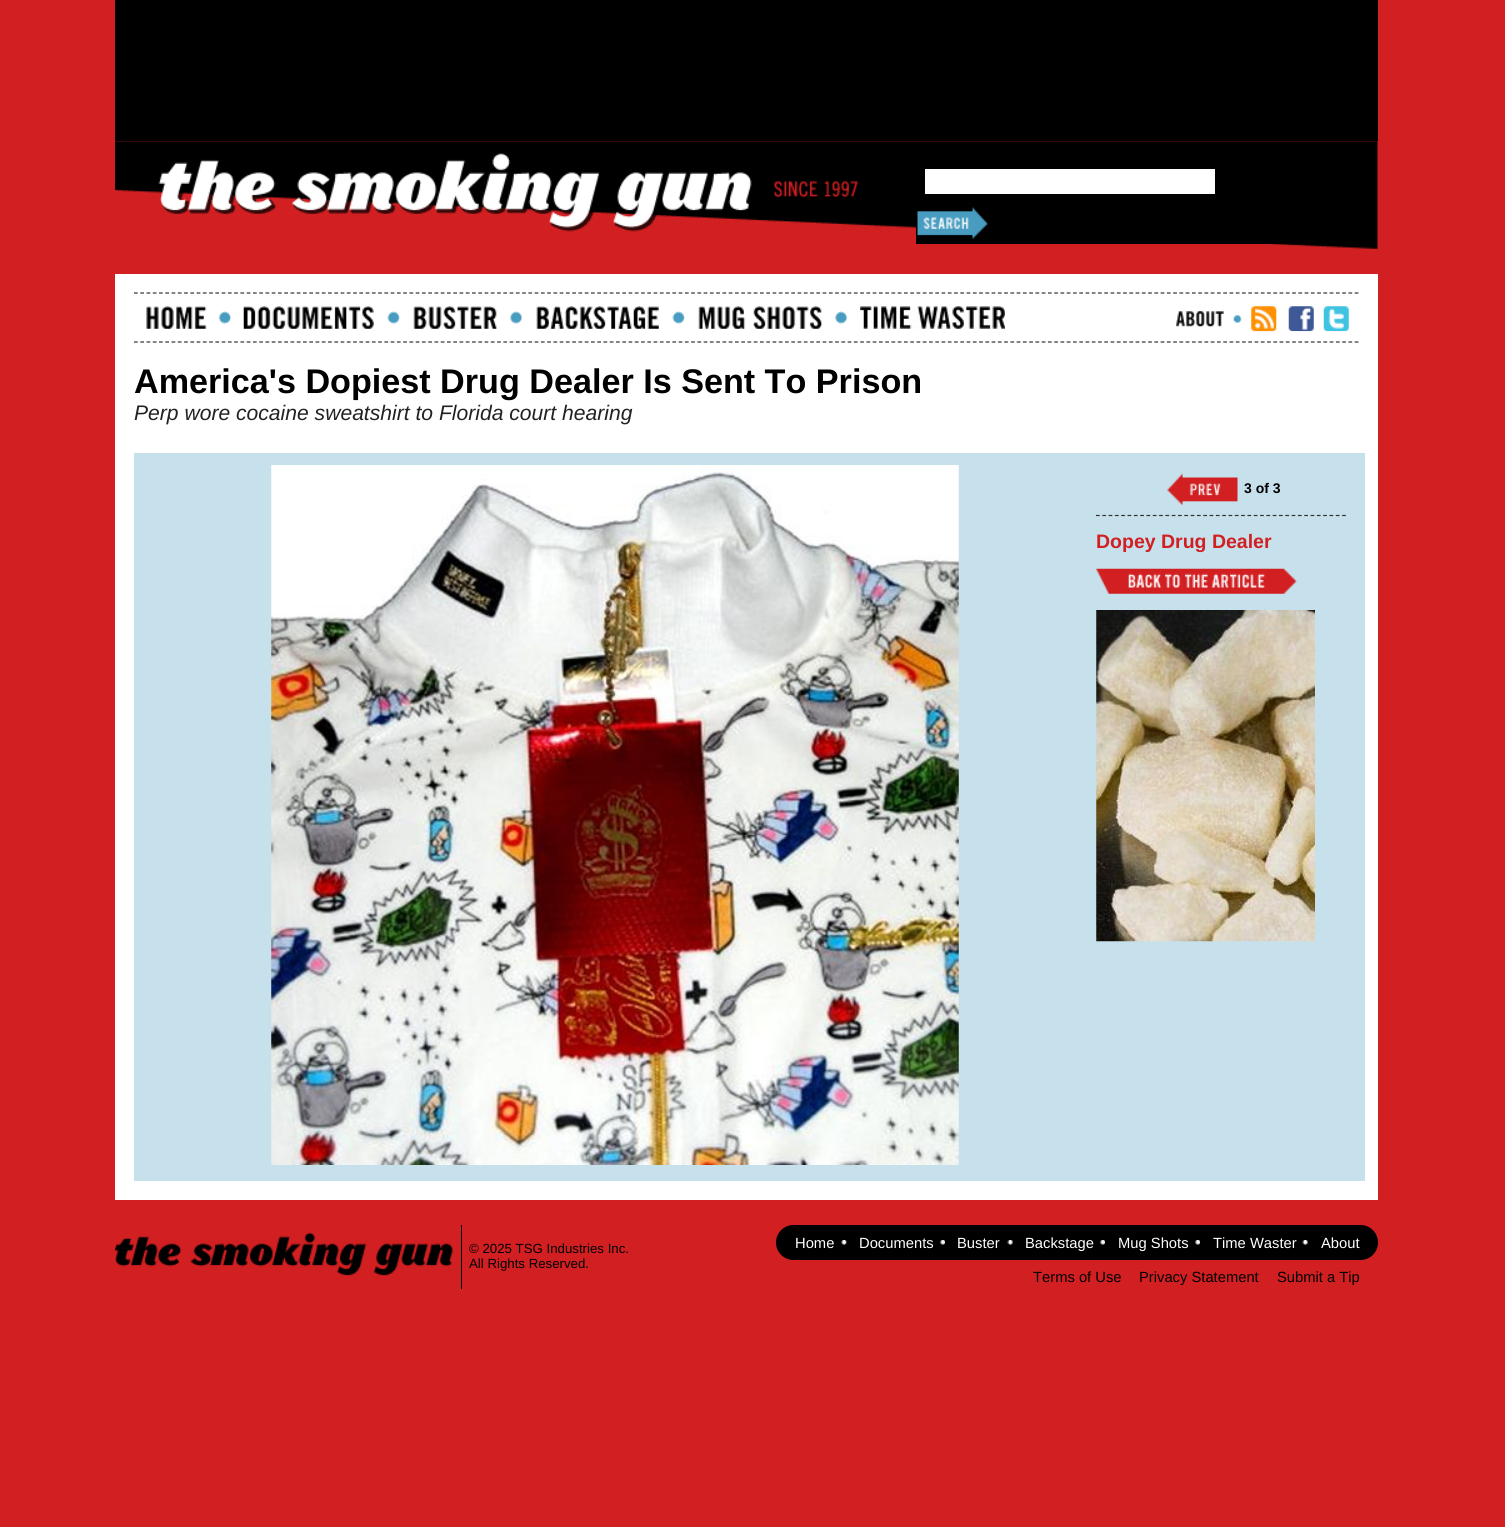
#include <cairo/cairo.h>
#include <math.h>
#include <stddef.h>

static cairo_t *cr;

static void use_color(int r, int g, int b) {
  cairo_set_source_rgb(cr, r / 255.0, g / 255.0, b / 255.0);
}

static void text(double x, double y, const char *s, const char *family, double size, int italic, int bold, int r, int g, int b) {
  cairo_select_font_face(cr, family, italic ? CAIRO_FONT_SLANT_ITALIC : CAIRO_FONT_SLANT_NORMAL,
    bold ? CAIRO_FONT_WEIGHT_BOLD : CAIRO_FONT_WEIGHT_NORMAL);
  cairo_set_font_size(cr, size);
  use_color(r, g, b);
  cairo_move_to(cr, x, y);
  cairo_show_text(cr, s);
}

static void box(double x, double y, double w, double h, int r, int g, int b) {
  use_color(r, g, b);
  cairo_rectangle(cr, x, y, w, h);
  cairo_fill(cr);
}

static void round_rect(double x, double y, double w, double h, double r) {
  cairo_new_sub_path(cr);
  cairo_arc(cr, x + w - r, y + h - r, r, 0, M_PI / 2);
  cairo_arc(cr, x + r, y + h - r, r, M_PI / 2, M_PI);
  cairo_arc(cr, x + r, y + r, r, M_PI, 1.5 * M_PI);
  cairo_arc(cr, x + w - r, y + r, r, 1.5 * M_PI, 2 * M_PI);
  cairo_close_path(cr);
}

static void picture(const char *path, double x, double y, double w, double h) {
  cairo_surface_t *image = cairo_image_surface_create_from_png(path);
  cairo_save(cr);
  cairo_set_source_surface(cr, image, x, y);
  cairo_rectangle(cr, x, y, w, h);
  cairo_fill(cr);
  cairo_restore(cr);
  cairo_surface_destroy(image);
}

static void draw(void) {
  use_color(209, 31, 34);
  cairo_paint(cr);
  box(115, 0, 1263, 141, 0, 0, 0);
  picture("img_01.png", 115, 141, 1263, 108);
  picture("img_02.png", 158, 153, 700, 79);
  box(916, 226, 378, 18, 0, 0, 0);
  use_color(255, 255, 255);
  round_rect(920.5, 164.5, 299, 34, 1.5);
  cairo_fill_preserve(cr);
  use_color(0, 0, 0);
  cairo_set_line_width(cr, 9);
  cairo_stroke(cr);
  picture("img_03.png", 917, 207, 71, 32);
  box(115, 274, 1263, 926, 255, 255, 255);
  cairo_new_path(cr);
  cairo_move_to(cr, 134, 293);
  cairo_line_to(cr, 1359, 293);
  use_color(51, 51, 51);
  cairo_set_line_width(cr, 1.2);
  cairo_set_dash(cr, (double[]){3.75, 2.51}, 2, 0);
  cairo_stroke(cr);
  cairo_new_path(cr);
  cairo_move_to(cr, 134, 342);
  cairo_line_to(cr, 1359, 342);
  cairo_stroke(cr);
  picture("img_04.png", 218, 311, 14, 13);
  picture("img_05.png", 146, 306, 61, 23);
  picture("img_06.png", 387, 311, 13, 13);
  picture("img_07.png", 243, 306, 131, 23);
  picture("img_08.png", 510, 311, 13, 13);
  picture("img_09.png", 413, 306, 85, 23);
  picture("img_10.png", 672, 311, 13, 13);
  picture("img_11.png", 536, 306, 123, 23);
  picture("img_12.png", 835, 311, 13, 13);
  picture("img_13.png", 698, 306, 124, 23);
  picture("img_14.png", 860, 306, 145, 23);
  picture("img_15.png", 1233, 315, 9, 8);
  picture("img_16.png", 1176, 311, 48, 16);
  picture("img_17.png", 1251, 306, 26, 26);
  picture("img_18.png", 1288, 306, 26, 26);
  picture("img_19.png", 1323, 306, 26, 26);
  box(134, 453, 1231, 728, 199, 225, 236);
  picture("img_20.png", 1167, 473, 71, 32);
  picture("img_21.png", 271, 465, 688, 700);
  cairo_new_path(cr);
  cairo_move_to(cr, 1096, 515.5);
  cairo_line_to(cr, 1346, 515.5);
  use_color(51, 51, 51);
  cairo_set_dash(cr, (double[]){3.75, 2.56}, 2, 0);
  cairo_stroke(cr);
  picture("img_22.png", 1096, 568, 201, 26);
  picture("img_23.png", 1096, 610, 219, 332);
  picture("img_24.png", 115, 1232, 338, 44);
  box(461, 1225, 1, 64, 0, 0, 0);
  round_rect(776, 1225, 602, 35, 17.5);
  cairo_fill(cr);
  picture("img_25.png", 841, 1240, 6, 5);
  picture("img_26.png", 940, 1240, 5, 5);
  picture("img_27.png", 1007, 1240, 6, 5);
  picture("img_26.png", 1100, 1240, 5, 5);
  picture("img_28.png", 1195, 1240, 5, 5);
  picture("img_27.png", 1302, 1240, 6, 5);
  text(134, 393, "America's Dopiest Drug Dealer Is Sent To Prison", "Liberation Sans", 34.15, 0, 1, 0, 0, 0);
  text(134, 420, "Perp wore cocaine sweatshirt to Florida court hearing", "Liberation Sans", 21.1, 1, 0, 34, 34, 34);
  text(1244, 493, "3 of 3", "Liberation Sans", 14, 0, 1, 0, 0, 0);
  text(1096, 548, "Dopey Drug Dealer", "Liberation Sans", 19.5, 0, 1, 209, 31, 34);
  text(469, 1253, "© 2025 TSG Industries Inc.", "Liberation Sans", 13.25, 0, 0, 0, 0, 0);
  text(469, 1268, "All Rights Reserved.", "Liberation Sans", 13.25, 0, 0, 0, 0, 0);
  text(795, 1248, "Home", "Liberation Sans", 14.75, 0, 0, 255, 255, 255);
  text(859, 1248, "Documents", "Liberation Sans", 14.75, 0, 0, 255, 255, 255);
  text(957, 1248, "Buster", "Liberation Sans", 14.75, 0, 0, 255, 255, 255);
  text(1025, 1248, "Backstage", "Liberation Sans", 14.75, 0, 0, 255, 255, 255);
  text(1118, 1248, "Mug Shots", "Liberation Sans", 14.75, 0, 0, 255, 255, 255);
  text(1213, 1248, "Time Waster", "Liberation Sans", 14.75, 0, 0, 255, 255, 255);
  text(1321, 1248, "About", "Liberation Sans", 14.75, 0, 0, 255, 255, 255);
  text(1033, 1282, "Terms of Use", "Liberation Sans", 14.75, 0, 0, 0, 0, 0);
  text(1139, 1282, "Privacy Statement", "Liberation Sans", 14.75, 0, 0, 0, 0, 0);
  text(1277, 1282, "Submit a Tip", "Liberation Sans", 14.75, 0, 0, 0, 0, 0);
}

int main(void) {
  cairo_surface_t *surface = cairo_image_surface_create(CAIRO_FORMAT_RGB24, 1505, 1527);
  cr = cairo_create(surface);
  cairo_font_options_t *options = cairo_font_options_create();
  cairo_font_options_set_hint_metrics(options, CAIRO_HINT_METRICS_OFF);
  cairo_font_options_set_hint_style(options, CAIRO_HINT_STYLE_NONE);
  cairo_set_font_options(cr, options);
  cairo_set_miter_limit(cr, 4);
  draw();
  cairo_surface_write_to_png(surface, "out.png");
  cairo_font_options_destroy(options);
  cairo_destroy(cr);
  cairo_surface_destroy(surface);
  return 0;
}
